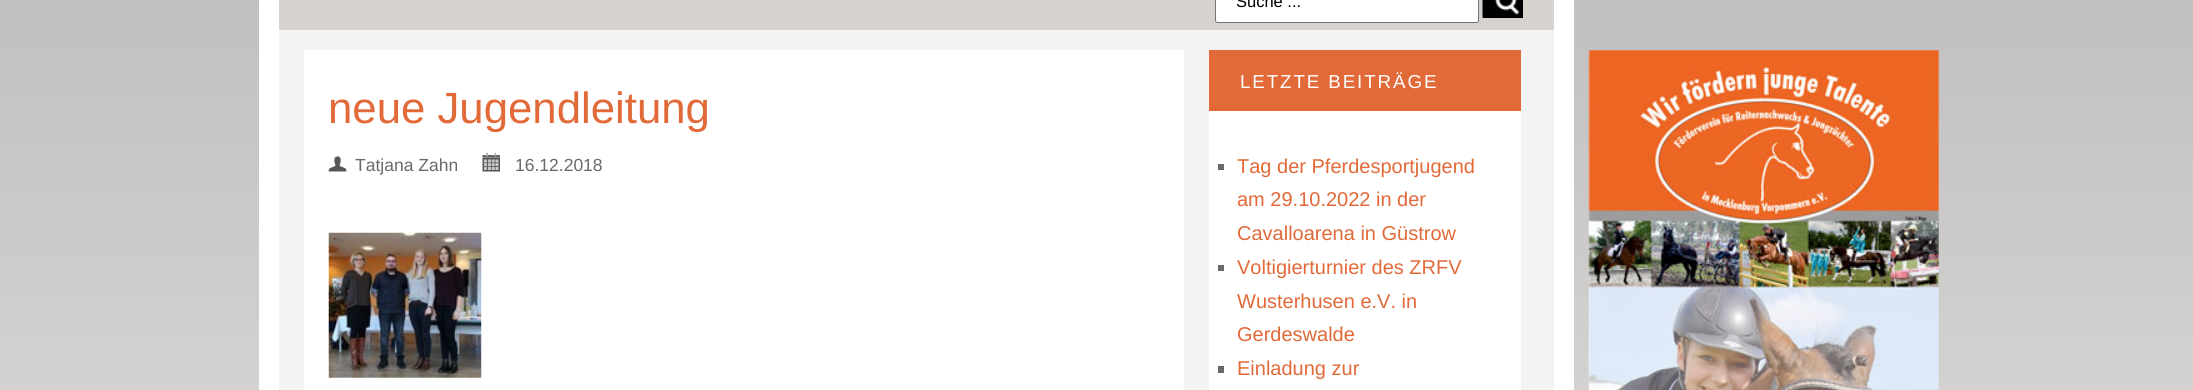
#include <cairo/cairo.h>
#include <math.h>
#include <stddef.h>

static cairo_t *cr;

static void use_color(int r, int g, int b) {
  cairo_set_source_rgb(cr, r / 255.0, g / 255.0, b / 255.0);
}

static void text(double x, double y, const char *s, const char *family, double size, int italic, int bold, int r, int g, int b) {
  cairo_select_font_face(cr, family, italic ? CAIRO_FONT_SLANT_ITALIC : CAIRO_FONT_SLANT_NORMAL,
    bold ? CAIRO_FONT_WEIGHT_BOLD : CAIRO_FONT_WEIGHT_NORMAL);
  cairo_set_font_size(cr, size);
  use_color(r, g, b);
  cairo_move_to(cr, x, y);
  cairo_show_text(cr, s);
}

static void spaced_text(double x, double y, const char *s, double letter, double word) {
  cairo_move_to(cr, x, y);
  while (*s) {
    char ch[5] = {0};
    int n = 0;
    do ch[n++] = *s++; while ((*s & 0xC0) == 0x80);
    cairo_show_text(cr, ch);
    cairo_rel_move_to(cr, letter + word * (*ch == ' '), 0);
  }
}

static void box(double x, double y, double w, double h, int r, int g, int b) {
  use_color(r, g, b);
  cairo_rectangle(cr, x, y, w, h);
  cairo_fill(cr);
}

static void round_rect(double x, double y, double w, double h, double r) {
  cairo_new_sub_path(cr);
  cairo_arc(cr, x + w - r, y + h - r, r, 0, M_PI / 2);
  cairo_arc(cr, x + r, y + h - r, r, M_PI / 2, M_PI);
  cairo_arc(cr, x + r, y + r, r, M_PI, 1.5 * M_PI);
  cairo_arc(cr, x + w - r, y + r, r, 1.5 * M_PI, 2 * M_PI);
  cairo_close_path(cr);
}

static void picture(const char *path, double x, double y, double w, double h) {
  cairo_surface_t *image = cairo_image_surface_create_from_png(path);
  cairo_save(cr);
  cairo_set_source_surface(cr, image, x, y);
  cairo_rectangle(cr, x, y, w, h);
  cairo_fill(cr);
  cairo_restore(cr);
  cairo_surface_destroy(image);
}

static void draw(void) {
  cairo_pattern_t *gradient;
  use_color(255, 255, 255);
  cairo_paint(cr);
  gradient = cairo_pattern_create_linear(1097, 0, 1097, 390);
  cairo_pattern_add_color_stop_rgba(gradient, 0, 0.757, 0.749, 0.753, 1);
  cairo_pattern_add_color_stop_rgba(gradient, 1, 0.827, 0.824, 0.816, 1);
  cairo_set_source(cr, gradient);
  cairo_pattern_destroy(gradient);
  cairo_rectangle(cr, 0, 0, 2193, 390);
  cairo_fill(cr);
  box(1554, 0, 20, 390, 255, 255, 255);
  box(259, 0, 20, 390, 255, 255, 255);
  box(279, 0, 1275, 30, 214, 211, 206);
  use_color(255, 255, 255);
  round_rect(1215.5, -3.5, 263, 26, 2);
  cairo_fill_preserve(cr);
  use_color(118, 118, 118);
  cairo_set_line_width(cr, 1);
  cairo_stroke(cr);
  box(1483, 0, 40, 18, 0, 0, 0);
  picture("img_01.png", 1482, 0, 38, 18);
  box(279, 30, 1275, 360, 243, 243, 243);
  box(304, 50, 880, 340, 255, 255, 255);
  picture("img_02.png", 328, 156, 19, 16);
  picture("img_03.png", 482, 152, 18, 20);
  picture("img_04.png", 328, 232, 154, 146);
  box(1209, 111, 312, 279, 255, 255, 255);
  box(1209, 50, 312, 61, 226, 105, 56);
  box(1218, 164, 6, 6, 105, 104, 106);
  box(1218, 265, 6, 6, 105, 104, 106);
  box(1218, 366, 6, 7, 105, 104, 106);
  picture("img_05.png", 1588, 50, 351, 340);
  text(1236, 7, "Suche ...", "Liberation Sans", 16.5, 0, 0, 0, 0, 0);
  text(328, 123, "neue Jugendleitung", "Liberation Sans", 43.75, 0, 0, 226, 105, 56);
  text(355, 171, "Tatjana Zahn", "Liberation Sans", 17.5, 0, 0, 105, 104, 106);
  text(515, 171, "16.12.2018", "Liberation Sans", 17.5, 0, 0, 105, 104, 106);
  cairo_set_font_size(cr, 18.75);
  use_color(255, 255, 255);
  spaced_text(1240, 88, "LETZTE BEITRÄGE", 1.9, 0);
  text(1237, 173, "Tag der Pferdesportjugend", "Liberation Sans", 20, 0, 0, 226, 105, 56);
  text(1237, 206, "am 29.10.2022 in der", "Liberation Sans", 20, 0, 0, 226, 105, 56);
  text(1237, 240, "Cavalloarena in Güstrow", "Liberation Sans", 20, 0, 0, 226, 105, 56);
  text(1237, 274, "Voltigierturnier des ZRFV", "Liberation Sans", 20, 0, 0, 226, 105, 56);
  text(1237, 308, "Wusterhusen e.V. in", "Liberation Sans", 20, 0, 0, 226, 105, 56);
  text(1237, 341, "Gerdeswalde", "Liberation Sans", 20, 0, 0, 226, 105, 56);
  text(1237, 375, "Einladung zur", "Liberation Sans", 20, 0, 0, 226, 105, 56);
}

int main(void) {
  cairo_surface_t *surface = cairo_image_surface_create(CAIRO_FORMAT_RGB24, 2193, 390);
  cr = cairo_create(surface);
  cairo_font_options_t *options = cairo_font_options_create();
  cairo_font_options_set_hint_metrics(options, CAIRO_HINT_METRICS_OFF);
  cairo_font_options_set_hint_style(options, CAIRO_HINT_STYLE_NONE);
  cairo_set_font_options(cr, options);
  cairo_set_miter_limit(cr, 4);
  draw();
  cairo_surface_write_to_png(surface, "out.png");
  cairo_font_options_destroy(options);
  cairo_destroy(cr);
  cairo_surface_destroy(surface);
  return 0;
}
